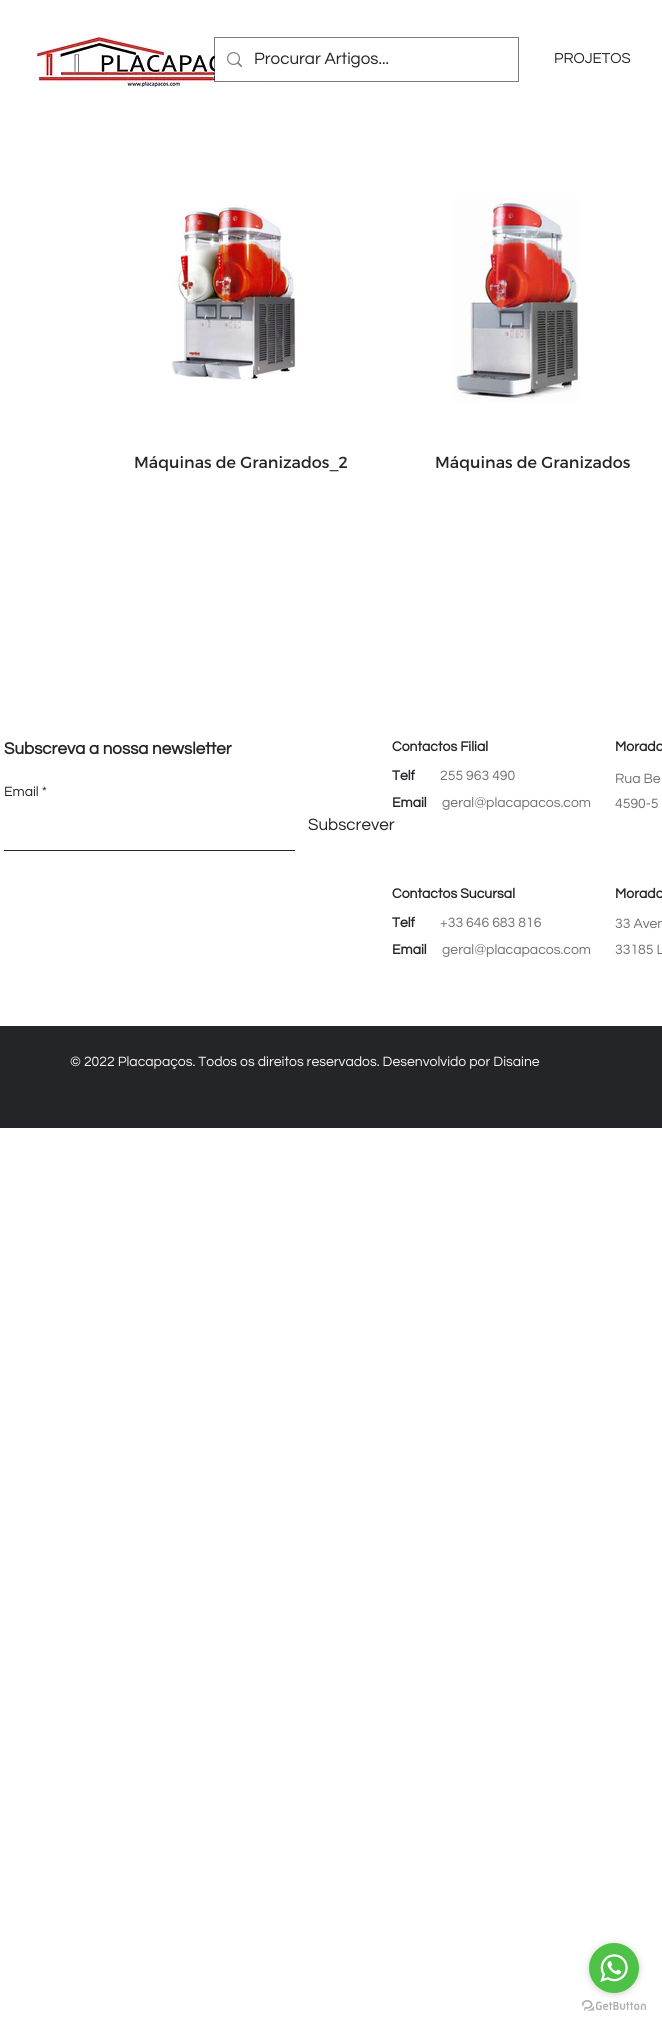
#include <cairo/cairo.h>
#include <math.h>
#include <stddef.h>

static cairo_t *cr;

static void use_color(int r, int g, int b) {
  cairo_set_source_rgb(cr, r / 255.0, g / 255.0, b / 255.0);
}

static void text(double x, double y, const char *s, const char *family, double size, int italic, int bold, int r, int g, int b) {
  cairo_select_font_face(cr, family, italic ? CAIRO_FONT_SLANT_ITALIC : CAIRO_FONT_SLANT_NORMAL,
    bold ? CAIRO_FONT_WEIGHT_BOLD : CAIRO_FONT_WEIGHT_NORMAL);
  cairo_set_font_size(cr, size);
  use_color(r, g, b);
  cairo_move_to(cr, x, y);
  cairo_show_text(cr, s);
}

static void box(double x, double y, double w, double h, int r, int g, int b) {
  use_color(r, g, b);
  cairo_rectangle(cr, x, y, w, h);
  cairo_fill(cr);
}

static void round_rect(double x, double y, double w, double h, double r) {
  cairo_new_sub_path(cr);
  cairo_arc(cr, x + w - r, y + h - r, r, 0, M_PI / 2);
  cairo_arc(cr, x + r, y + h - r, r, M_PI / 2, M_PI);
  cairo_arc(cr, x + r, y + r, r, M_PI, 1.5 * M_PI);
  cairo_arc(cr, x + w - r, y + r, r, 1.5 * M_PI, 2 * M_PI);
  cairo_close_path(cr);
}

static void shadow(double x, double y, double w, double h, double r, double blur, double alpha) {
  cairo_push_group_with_content(cr, CAIRO_CONTENT_ALPHA);
  cairo_set_operator(cr, CAIRO_OPERATOR_SOURCE);
  for (int i = 15; i >= -15 && fmin(w, h) + blur * i / 3 > 0; i -= 2) {
    double e = blur * i / 6;
    cairo_set_source_rgba(cr, 0, 0, 0, alpha * erfc((i - 1) / 8.5) / 2);
    round_rect(x - e, y - e, w + 2 * e, h + 2 * e, fmax(0, fmin(r + e + blur * .6, fmin(w, h) / 2 + e)));
    cairo_fill(cr);
  }
  cairo_pattern_t *soft = cairo_pop_group(cr);
  cairo_mask(cr, soft);
  cairo_pattern_destroy(soft);
}

static void picture(const char *path, double x, double y, double w, double h) {
  cairo_surface_t *image = cairo_image_surface_create_from_png(path);
  cairo_save(cr);
  cairo_set_source_surface(cr, image, x, y);
  cairo_rectangle(cr, x, y, w, h);
  cairo_fill(cr);
  cairo_restore(cr);
  cairo_surface_destroy(image);
}

static void draw(void) {
  use_color(255, 255, 255);
  cairo_paint(cr);
  picture("img_01.png", 35, 35, 237, 55);
  cairo_rectangle(cr, 214.5, 37.5, 304, 44);
  cairo_set_source_rgba(cr, 0.141, 0.145, 0.157, 0.6);
  cairo_set_line_width(cr, 1);
  cairo_stroke(cr);
  box(215, 54, 57, 27, 255, 255, 255);
  picture("img_02.png", 227, 52, 15, 15);
  picture("img_03.png", 171, 204, 125, 177);
  picture("img_04.png", 453, 199, 126, 203);
  box(4, 850, 291, 1, 36, 37, 40);
  box(0, 1026, 662, 102, 36, 37, 40);
  picture("img_06.png", 582, 2000, 64, 11);
  use_color(136, 136, 136);
  shadow(589, 1944, 50, 50, 25, 3.5, 0.4);
  use_color(77, 194, 71);
  cairo_arc(cr, 614, 1968, 25, 0, 2 * M_PI);
  cairo_fill(cr);
  picture("img_05.png", 600, 1954, 28, 28);
  text(254, 64, "Procurar Artigos...", "Questrial", 17, 0, 0, 36, 37, 40);
  text(554, 63, "PROJETOS", "Questrial", 15, 0, 0, 36, 37, 40);
  text(134, 468, "Máquinas de Granizados_2", "Montserrat", 16, 0, 0, 36, 37, 40);
  text(435, 468, "Máquinas de Granizados", "Montserrat", 16, 0, 0, 36, 37, 40);
  text(4, 754, "Subscreva a nossa newsletter", "Questrial", 17, 0, 1, 36, 37, 40);
  text(4, 796, "Email *", "Questrial", 14, 0, 0, 36, 37, 40);
  text(308, 830, "Subscrever", "Questrial", 17, 0, 0, 36, 37, 40);
  text(392, 751, "Contactos Filial", "Questrial", 14, 0, 1, 36, 37, 40);
  text(615, 751, "Morada", "Questrial", 14, 0, 1, 36, 37, 40);
  text(392, 780, "Telf", "Questrial", 14, 0, 1, 36, 37, 40);
  text(440, 780, "255 963 490", "Questrial", 14, 0, 0, 112, 112, 112);
  text(615, 783, "Rua Be", "Questrial", 14, 0, 0, 112, 112, 112);
  text(615, 808, "4590-5", "Questrial", 14, 0, 0, 112, 112, 112);
  text(392, 807, "Email", "Questrial", 14, 0, 1, 36, 37, 40);
  text(442, 807, "geral@placapacos.com", "Questrial", 14, 0, 0, 112, 112, 112);
  text(392, 898, "Contactos Sucursal", "Questrial", 14, 0, 1, 36, 37, 40);
  text(615, 898, "Morada", "Questrial", 14, 0, 1, 36, 37, 40);
  text(392, 927, "Telf", "Questrial", 14, 0, 1, 36, 37, 40);
  text(440, 927, "+33 646 683 816", "Questrial", 14, 0, 0, 112, 112, 112);
  text(615, 928, "33 Aven", "Questrial", 14, 0, 0, 112, 112, 112);
  text(615, 954, "33185 L", "Questrial", 14, 0, 0, 112, 112, 112);
  text(392, 954, "Email", "Questrial", 14, 0, 1, 36, 37, 40);
  text(442, 954, "geral@placapacos.com", "Questrial", 14, 0, 0, 112, 112, 112);
  text(70, 1066, "© 2022 Placapaços. Todos os direitos reservados. Desenvolvido por Disaine", "Questrial", 14, 0, 0, 250, 247, 247);
}

int main(void) {
  cairo_surface_t *surface = cairo_image_surface_create(CAIRO_FORMAT_RGB24, 662, 2027);
  cr = cairo_create(surface);
  cairo_font_options_t *options = cairo_font_options_create();
  cairo_font_options_set_hint_metrics(options, CAIRO_HINT_METRICS_OFF);
  cairo_font_options_set_hint_style(options, CAIRO_HINT_STYLE_NONE);
  cairo_set_font_options(cr, options);
  cairo_set_miter_limit(cr, 4);
  draw();
  cairo_surface_write_to_png(surface, "out.png");
  cairo_font_options_destroy(options);
  cairo_destroy(cr);
  cairo_surface_destroy(surface);
  return 0;
}
